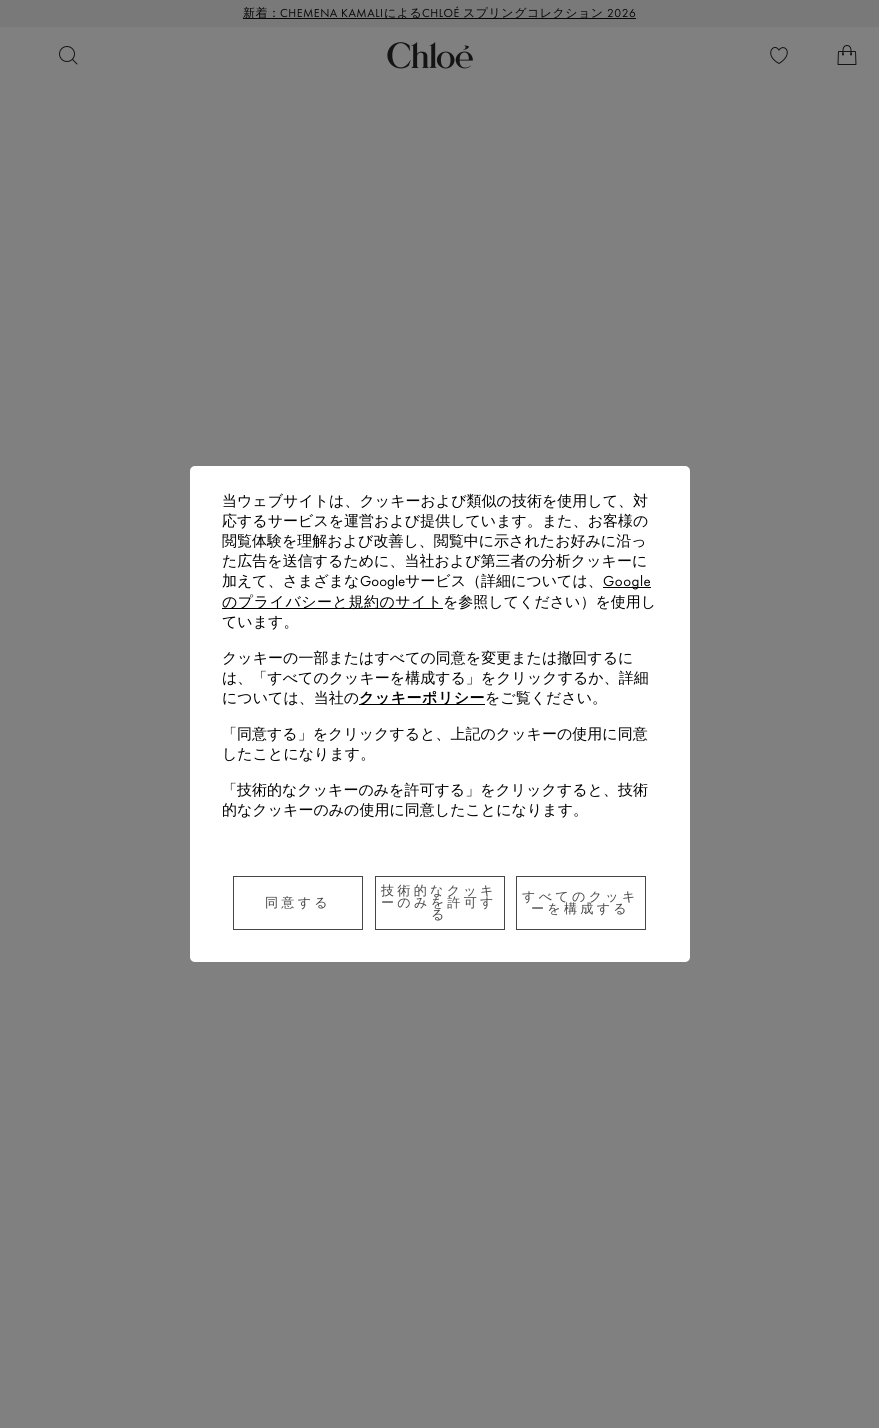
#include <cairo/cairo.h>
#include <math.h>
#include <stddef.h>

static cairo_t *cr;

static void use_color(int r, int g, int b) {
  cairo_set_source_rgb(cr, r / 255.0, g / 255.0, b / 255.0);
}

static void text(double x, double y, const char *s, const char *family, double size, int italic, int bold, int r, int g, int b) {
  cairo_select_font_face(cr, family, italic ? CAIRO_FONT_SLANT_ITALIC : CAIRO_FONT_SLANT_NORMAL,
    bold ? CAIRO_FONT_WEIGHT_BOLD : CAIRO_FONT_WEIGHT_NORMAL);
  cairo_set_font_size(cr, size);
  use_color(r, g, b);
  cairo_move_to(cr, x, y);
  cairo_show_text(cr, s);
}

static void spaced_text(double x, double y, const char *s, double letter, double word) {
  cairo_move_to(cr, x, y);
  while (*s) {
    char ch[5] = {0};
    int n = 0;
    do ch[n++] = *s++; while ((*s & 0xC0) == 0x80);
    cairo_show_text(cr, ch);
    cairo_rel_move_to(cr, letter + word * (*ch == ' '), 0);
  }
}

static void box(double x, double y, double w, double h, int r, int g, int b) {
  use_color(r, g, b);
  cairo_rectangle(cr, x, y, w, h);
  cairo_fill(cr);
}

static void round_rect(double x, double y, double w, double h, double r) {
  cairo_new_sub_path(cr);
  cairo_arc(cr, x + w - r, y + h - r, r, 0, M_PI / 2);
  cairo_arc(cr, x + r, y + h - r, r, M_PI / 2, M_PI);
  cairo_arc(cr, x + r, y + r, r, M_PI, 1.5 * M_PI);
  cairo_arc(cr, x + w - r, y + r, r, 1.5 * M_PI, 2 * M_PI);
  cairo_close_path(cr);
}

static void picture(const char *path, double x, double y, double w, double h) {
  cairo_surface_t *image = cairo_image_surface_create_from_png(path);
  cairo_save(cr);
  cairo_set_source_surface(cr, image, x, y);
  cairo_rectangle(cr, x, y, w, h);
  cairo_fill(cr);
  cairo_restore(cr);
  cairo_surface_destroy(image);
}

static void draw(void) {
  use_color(128, 128, 128);
  cairo_paint(cr);
  box(0, 0, 879, 27, 121, 121, 121);
  box(243, 18, 393, 1, 7, 7, 7);
  picture("img_01.png", 387, 42, 86, 27);
  picture("img_02.png", 59, 46, 19, 19);
  cairo_new_path(cr);
  cairo_move_to(cr, 778.5, 49.5);
  cairo_line_to(cr, 779, 50);
  cairo_curve_to(cr, 784.5, 42.5, 794.5, 54, 779, 63.5);
  cairo_curve_to(cr, 763.5, 55, 773.5, 42.5, 778.5, 49.5);
  cairo_close_path(cr);
  use_color(20, 20, 20);
  cairo_set_line_width(cr, 1);
  cairo_stroke(cr);
  picture("img_03.png", 837, 45, 20, 20);
  use_color(255, 255, 255);
  round_rect(190, 466, 500, 496, 5);
  cairo_fill(cr);
  box(603, 587, 48, 1, 0, 0, 0);
  box(222, 608, 221, 1, 0, 0, 0);
  box(359, 704, 126, 1, 0, 0, 0);
  cairo_rectangle(cr, 233.5, 876.5, 129, 53);
  use_color(70, 70, 70);
  cairo_stroke(cr);
  cairo_rectangle(cr, 375.5, 876.5, 129, 53);
  cairo_stroke(cr);
  cairo_rectangle(cr, 516.5, 876.5, 129, 53);
  cairo_stroke(cr);
  cairo_select_font_face(cr, "WenQuanYi Zen Hei Medium", CAIRO_FONT_SLANT_NORMAL, CAIRO_FONT_WEIGHT_NORMAL);
  cairo_set_font_size(cr, 12);
  use_color(7, 7, 7);
  spaced_text(243, 17, "新着：", 0.5, 0);
  cairo_select_font_face(cr, "Futura PT", CAIRO_FONT_SLANT_NORMAL, CAIRO_FONT_WEIGHT_NORMAL);
  spaced_text(280, 17, "CHEMENA KAMALI", 0.5, 0);
  cairo_select_font_face(cr, "WenQuanYi Zen Hei Medium", CAIRO_FONT_SLANT_NORMAL, CAIRO_FONT_WEIGHT_NORMAL);
  spaced_text(384, 17, "による", 0.5, 0);
  cairo_select_font_face(cr, "Futura PT", CAIRO_FONT_SLANT_NORMAL, CAIRO_FONT_WEIGHT_NORMAL);
  spaced_text(422, 17, "CHLOÉ", 0.5, 0);
  cairo_select_font_face(cr, "WenQuanYi Zen Hei Medium", CAIRO_FONT_SLANT_NORMAL, CAIRO_FONT_WEIGHT_NORMAL);
  spaced_text(463, 17, "スプリングコレクション", 0.5, 0);
  cairo_select_font_face(cr, "Futura PT", CAIRO_FONT_SLANT_NORMAL, CAIRO_FONT_WEIGHT_NORMAL);
  spaced_text(607, 17, "2026", 0.5, 0);
  text(222, 506, "当ウェブサイトは、クッキーおよび類似の技術を使用して、対", "WenQuanYi Zen Hei Medium", 15, 0, 0, 0, 0, 0);
  text(222, 526, "応するサービスを運営および提供しています。また、お客様の", "WenQuanYi Zen Hei Medium", 15, 0, 0, 0, 0, 0);
  text(222, 546, "閲覧体験を理解および改善し、閲覧中に示されたお好みに沿っ", "WenQuanYi Zen Hei Medium", 15, 0, 0, 0, 0, 0);
  text(222, 566, "た広告を送信するために、当社および第三者の分析クッキーに", "WenQuanYi Zen Hei Medium", 15, 0, 0, 0, 0, 0);
  text(222, 586, "加えて、さまざまな", "WenQuanYi Zen Hei Medium", 15, 0, 0, 0, 0, 0);
  text(360, 586, "Google", "Futura PT", 15, 0, 0, 0, 0, 0);
  text(405, 586, "サービス（詳細については、", "WenQuanYi Zen Hei Medium", 15, 0, 0, 0, 0, 0);
  cairo_select_font_face(cr, "Futura PT", CAIRO_FONT_SLANT_NORMAL, CAIRO_FONT_WEIGHT_NORMAL);
  spaced_text(603, 586, "Google", 0.5, 0);
  cairo_select_font_face(cr, "WenQuanYi Zen Hei Medium", CAIRO_FONT_SLANT_NORMAL, CAIRO_FONT_WEIGHT_NORMAL);
  spaced_text(222, 607, "のプライバシーと規約のサイト", 0.5, 0);
  text(443, 607, "を参照してください）を使用し", "WenQuanYi Zen Hei Medium", 15, 0, 0, 0, 0, 0);
  text(222, 627, "ています。", "WenQuanYi Zen Hei Medium", 15, 0, 0, 0, 0, 0);
  text(222, 663, "クッキーの一部またはすべての同意を変更または撤回するに", "WenQuanYi Zen Hei Medium", 15, 0, 0, 0, 0, 0);
  text(222, 683, "は、「すべてのクッキーを構成する」をクリックするか、詳細", "WenQuanYi Zen Hei Medium", 15, 0, 0, 0, 0, 0);
  text(222, 703, "については、当社の", "WenQuanYi Zen Hei Medium", 15, 0, 0, 0, 0, 0);
  cairo_select_font_face(cr, "WenQuanYi Zen Hei", CAIRO_FONT_SLANT_NORMAL, CAIRO_FONT_WEIGHT_BOLD);
  spaced_text(359, 703, "クッキーポリシー", 0.5, 0);
  text(485, 703, "をご覧ください。", "WenQuanYi Zen Hei Medium", 15, 0, 0, 0, 0, 0);
  text(222, 739, "「同意する」をクリックすると、上記のクッキーの使用に同意", "WenQuanYi Zen Hei Medium", 15, 0, 0, 0, 0, 0);
  text(222, 759, "したことになります。", "WenQuanYi Zen Hei Medium", 15, 0, 0, 0, 0, 0);
  text(222, 795, "「技術的なクッキーのみを許可する」をクリックすると、技術", "WenQuanYi Zen Hei Medium", 15, 0, 0, 0, 0, 0);
  text(222, 815, "的なクッキーのみの使用に同意したことになります。", "WenQuanYi Zen Hei Medium", 15, 0, 0, 0, 0, 0);
  cairo_set_font_size(cr, 13.1);
  use_color(70, 70, 70);
  spaced_text(265, 907, "同意する", 3.25, 0);
  spaced_text(381, 895, "技術的なクッキ", 3.25, 0);
  spaced_text(381, 907, "ーのみを許可す", 3.25, 0);
  spaced_text(431, 919, "る", 3.25, 0);
  spaced_text(522, 901, "すべてのクッキ", 3.25, 0);
  spaced_text(531, 913, "ーを構成する", 3.25, 0);
}

int main(void) {
  cairo_surface_t *surface = cairo_image_surface_create(CAIRO_FORMAT_RGB24, 879, 1428);
  cr = cairo_create(surface);
  cairo_font_options_t *options = cairo_font_options_create();
  cairo_font_options_set_hint_metrics(options, CAIRO_HINT_METRICS_OFF);
  cairo_font_options_set_hint_style(options, CAIRO_HINT_STYLE_NONE);
  cairo_set_font_options(cr, options);
  cairo_set_miter_limit(cr, 4);
  draw();
  cairo_surface_write_to_png(surface, "out.png");
  cairo_font_options_destroy(options);
  cairo_destroy(cr);
  cairo_surface_destroy(surface);
  return 0;
}
